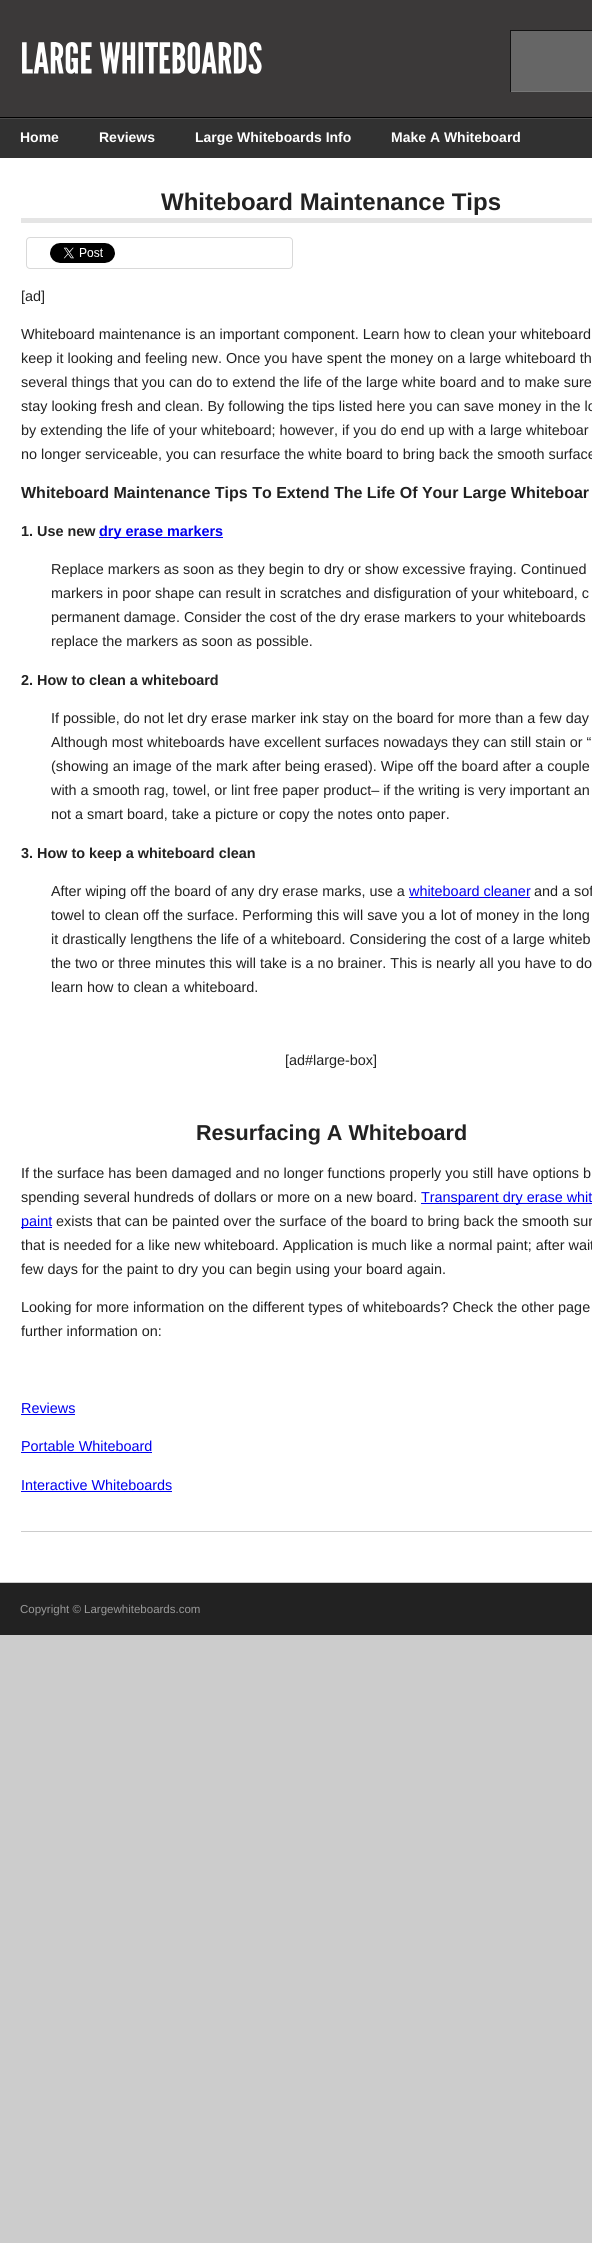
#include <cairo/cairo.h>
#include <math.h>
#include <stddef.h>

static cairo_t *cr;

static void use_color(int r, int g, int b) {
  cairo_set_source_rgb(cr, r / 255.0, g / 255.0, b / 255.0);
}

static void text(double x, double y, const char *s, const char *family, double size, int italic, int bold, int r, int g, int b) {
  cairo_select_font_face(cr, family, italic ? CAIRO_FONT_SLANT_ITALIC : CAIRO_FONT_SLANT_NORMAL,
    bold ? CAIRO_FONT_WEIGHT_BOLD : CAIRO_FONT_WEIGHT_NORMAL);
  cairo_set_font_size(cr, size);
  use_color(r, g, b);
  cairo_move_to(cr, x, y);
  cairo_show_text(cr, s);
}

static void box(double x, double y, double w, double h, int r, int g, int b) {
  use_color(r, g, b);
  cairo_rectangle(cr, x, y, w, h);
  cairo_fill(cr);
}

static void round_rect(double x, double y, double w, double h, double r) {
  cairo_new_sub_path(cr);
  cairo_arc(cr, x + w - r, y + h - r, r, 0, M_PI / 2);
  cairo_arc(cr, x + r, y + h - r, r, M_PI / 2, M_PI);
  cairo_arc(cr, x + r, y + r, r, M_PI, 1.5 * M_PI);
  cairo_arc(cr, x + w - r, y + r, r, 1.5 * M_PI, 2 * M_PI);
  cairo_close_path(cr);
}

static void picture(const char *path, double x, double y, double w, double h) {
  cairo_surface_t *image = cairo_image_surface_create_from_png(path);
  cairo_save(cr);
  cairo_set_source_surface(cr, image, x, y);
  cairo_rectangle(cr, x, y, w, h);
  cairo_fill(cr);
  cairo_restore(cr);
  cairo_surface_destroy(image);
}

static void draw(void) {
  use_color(204, 204, 204);
  cairo_paint(cr);
  box(0, 158, 592, 1424, 255, 255, 255);
  box(0, 0, 592, 117, 59, 57, 57);
  picture("img_01.png", 22, 42, 70, 32);
  picture("img_02.png", 99, 42, 163, 32);
  box(511, 31, 81, 60, 102, 102, 102);
  box(510, 30, 82, 1, 17, 17, 17);
  box(510, 91, 82, 1, 119, 119, 119);
  box(510, 30, 1, 62, 17, 17, 17);
  picture("img_03.png", 0, 117, 592, 41);
  box(21, 218, 571, 5, 229, 229, 229);
  box(21, 1531, 571, 1, 204, 204, 204);
  round_rect(26.5, 237.5, 266, 31, 3.5);
  use_color(217, 217, 217);
  cairo_set_line_width(cr, 1);
  cairo_stroke(cr);
  picture("img_04.png", 50, 243, 65, 20);
  box(99, 537, 124, 1, 0, 0, 238);
  box(409, 897, 121, 1, 0, 0, 238);
  box(421, 1203, 171, 1, 0, 0, 238);
  box(21, 1227, 31, 1, 0, 0, 238);
  box(21, 1414, 54, 1, 0, 0, 238);
  box(21, 1452, 131, 1, 0, 0, 238);
  box(21, 1491, 151, 1, 0, 0, 238);
  box(0, 1583, 592, 52, 34, 34, 34);
  text(20, 142, "Home", "Liberation Sans", 14, 0, 1, 255, 255, 255);
  text(99, 142, "Reviews", "Liberation Sans", 14, 0, 1, 255, 255, 255);
  text(195, 142, "Large Whiteboards Info", "Liberation Sans", 14, 0, 1, 255, 255, 255);
  text(391, 142, "Make A Whiteboard", "Liberation Sans", 14, 0, 1, 255, 255, 255);
  text(161, 210, "Whiteboard Maintenance Tips", "Liberation Sans", 24, 0, 1, 34, 34, 34);
  text(21, 301, "[ad]", "Liberation Sans", 14.4, 0, 0, 34, 34, 34);
  text(21, 339, "Whiteboard maintenance is an important component. Learn how to clean your whiteboard", "Liberation Sans", 14.4, 0, 0, 34, 34, 34);
  text(21, 363, "keep it looking and feeling new. Once you have spent the money on a large whiteboard th", "Liberation Sans", 14.4, 0, 0, 34, 34, 34);
  text(21, 387, "several things that you can do to extend the life of the large white board and to make sure", "Liberation Sans", 14.4, 0, 0, 34, 34, 34);
  text(21, 411, "stay looking fresh and clean. By following the tips listed here you can save money in the lo", "Liberation Sans", 14.4, 0, 0, 34, 34, 34);
  text(21, 435, "by extending the life of your whiteboard; however, if you do end up with a large whiteboar", "Liberation Sans", 14.4, 0, 0, 34, 34, 34);
  text(21, 459, "no longer serviceable, you can resurface the white board to bring back the smooth surface", "Liberation Sans", 14.4, 0, 0, 34, 34, 34);
  text(21, 498, "Whiteboard Maintenance Tips To Extend The Life Of Your Large Whiteboar", "Liberation Sans", 16, 0, 1, 34, 34, 34);
  text(21, 536, "1. Use new", "Liberation Sans", 14.4, 0, 1, 34, 34, 34);
  text(99, 536, "dry erase markers", "Liberation Sans", 14.4, 0, 1, 0, 0, 238);
  text(51, 574, "Replace markers as soon as they begin to dry or show excessive fraying. Continued", "Liberation Sans", 14.4, 0, 0, 34, 34, 34);
  text(51, 598, "markers in poor shape can result in scratches and disfiguration of your whiteboard, c", "Liberation Sans", 14.4, 0, 0, 34, 34, 34);
  text(51, 622, "permanent damage. Consider the cost of the dry erase markers to your whiteboards", "Liberation Sans", 14.4, 0, 0, 34, 34, 34);
  text(51, 646, "replace the markers as soon as possible.", "Liberation Sans", 14.4, 0, 0, 34, 34, 34);
  text(21, 685, "2. How to clean a whiteboard", "Liberation Sans", 14.4, 0, 1, 34, 34, 34);
  text(51, 723, "If possible, do not let dry erase marker ink stay on the board for more than a few day", "Liberation Sans", 14.4, 0, 0, 34, 34, 34);
  text(51, 747, "Although most whiteboards have excellent surfaces nowadays they can still stain or “", "Liberation Sans", 14.4, 0, 0, 34, 34, 34);
  text(51, 771, "(showing an image of the mark after being erased). Wipe off the board after a couple", "Liberation Sans", 14.4, 0, 0, 34, 34, 34);
  text(51, 795, "with a smooth rag, towel, or lint free paper product– if the writing is very important an", "Liberation Sans", 14.4, 0, 0, 34, 34, 34);
  text(51, 819, "not a smart board, take a picture or copy the notes onto paper.", "Liberation Sans", 14.4, 0, 0, 34, 34, 34);
  text(21, 858, "3. How to keep a whiteboard clean", "Liberation Sans", 14.4, 0, 1, 34, 34, 34);
  text(51, 896, "After wiping off the board of any dry erase marks, use a", "Liberation Sans", 14.4, 0, 0, 34, 34, 34);
  text(409, 896, "whiteboard cleaner", "Liberation Sans", 14.4, 0, 0, 0, 0, 238);
  text(534, 896, "and a sof", "Liberation Sans", 14.4, 0, 0, 34, 34, 34);
  text(51, 920, "towel to clean off the surface. Performing this will save you a lot of money in the long", "Liberation Sans", 14.4, 0, 0, 34, 34, 34);
  text(51, 944, "it drastically lengthens the life of a whiteboard. Considering the cost of a large whiteb", "Liberation Sans", 14.4, 0, 0, 34, 34, 34);
  text(51, 968, "the two or three minutes this will take is a no brainer. This is nearly all you have to do", "Liberation Sans", 14.4, 0, 0, 34, 34, 34);
  text(51, 992, "learn how to clean a whiteboard.", "Liberation Sans", 14.4, 0, 0, 34, 34, 34);
  text(285, 1065, "[ad#large-box]", "Liberation Sans", 14.4, 0, 0, 34, 34, 34);
  text(196, 1140, "Resurfacing A Whiteboard", "Liberation Sans", 21.6, 0, 1, 34, 34, 34);
  text(21, 1178, "If the surface has been damaged and no longer functions properly you still have options b", "Liberation Sans", 14.4, 0, 0, 34, 34, 34);
  text(21, 1202, "spending several hundreds of dollars or more on a new board.", "Liberation Sans", 14.4, 0, 0, 34, 34, 34);
  text(421, 1202, "Transparent dry erase whit", "Liberation Sans", 14.4, 0, 0, 0, 0, 238);
  text(21, 1226, "paint", "Liberation Sans", 14.4, 0, 0, 0, 0, 238);
  text(56, 1226, "exists that can be painted over the surface of the board to bring back the smooth sur", "Liberation Sans", 14.4, 0, 0, 34, 34, 34);
  text(21, 1250, "that is needed for a like new whiteboard. Application is much like a normal paint; after wait", "Liberation Sans", 14.4, 0, 0, 34, 34, 34);
  text(21, 1274, "few days for the paint to dry you can begin using your board again.", "Liberation Sans", 14.4, 0, 0, 34, 34, 34);
  text(21, 1312, "Looking for more information on the different types of whiteboards? Check the other page", "Liberation Sans", 14.4, 0, 0, 34, 34, 34);
  text(21, 1336, "further information on:", "Liberation Sans", 14.4, 0, 0, 34, 34, 34);
  text(21, 1413, "Reviews", "Liberation Sans", 14.4, 0, 0, 0, 0, 238);
  text(21, 1451, "Portable Whiteboard", "Liberation Sans", 14.4, 0, 0, 0, 0, 238);
  text(21, 1490, "Interactive Whiteboards", "Liberation Sans", 14.4, 0, 0, 0, 0, 238);
  text(20, 1613, "Copyright © Largewhiteboards.com", "Liberation Sans", 11.5, 0, 0, 153, 153, 153);
}

int main(void) {
  cairo_surface_t *surface = cairo_image_surface_create(CAIRO_FORMAT_RGB24, 592, 2243);
  cr = cairo_create(surface);
  cairo_font_options_t *options = cairo_font_options_create();
  cairo_font_options_set_hint_metrics(options, CAIRO_HINT_METRICS_OFF);
  cairo_font_options_set_hint_style(options, CAIRO_HINT_STYLE_NONE);
  cairo_set_font_options(cr, options);
  cairo_set_miter_limit(cr, 4);
  draw();
  cairo_surface_write_to_png(surface, "out.png");
  cairo_font_options_destroy(options);
  cairo_destroy(cr);
  cairo_surface_destroy(surface);
  return 0;
}
